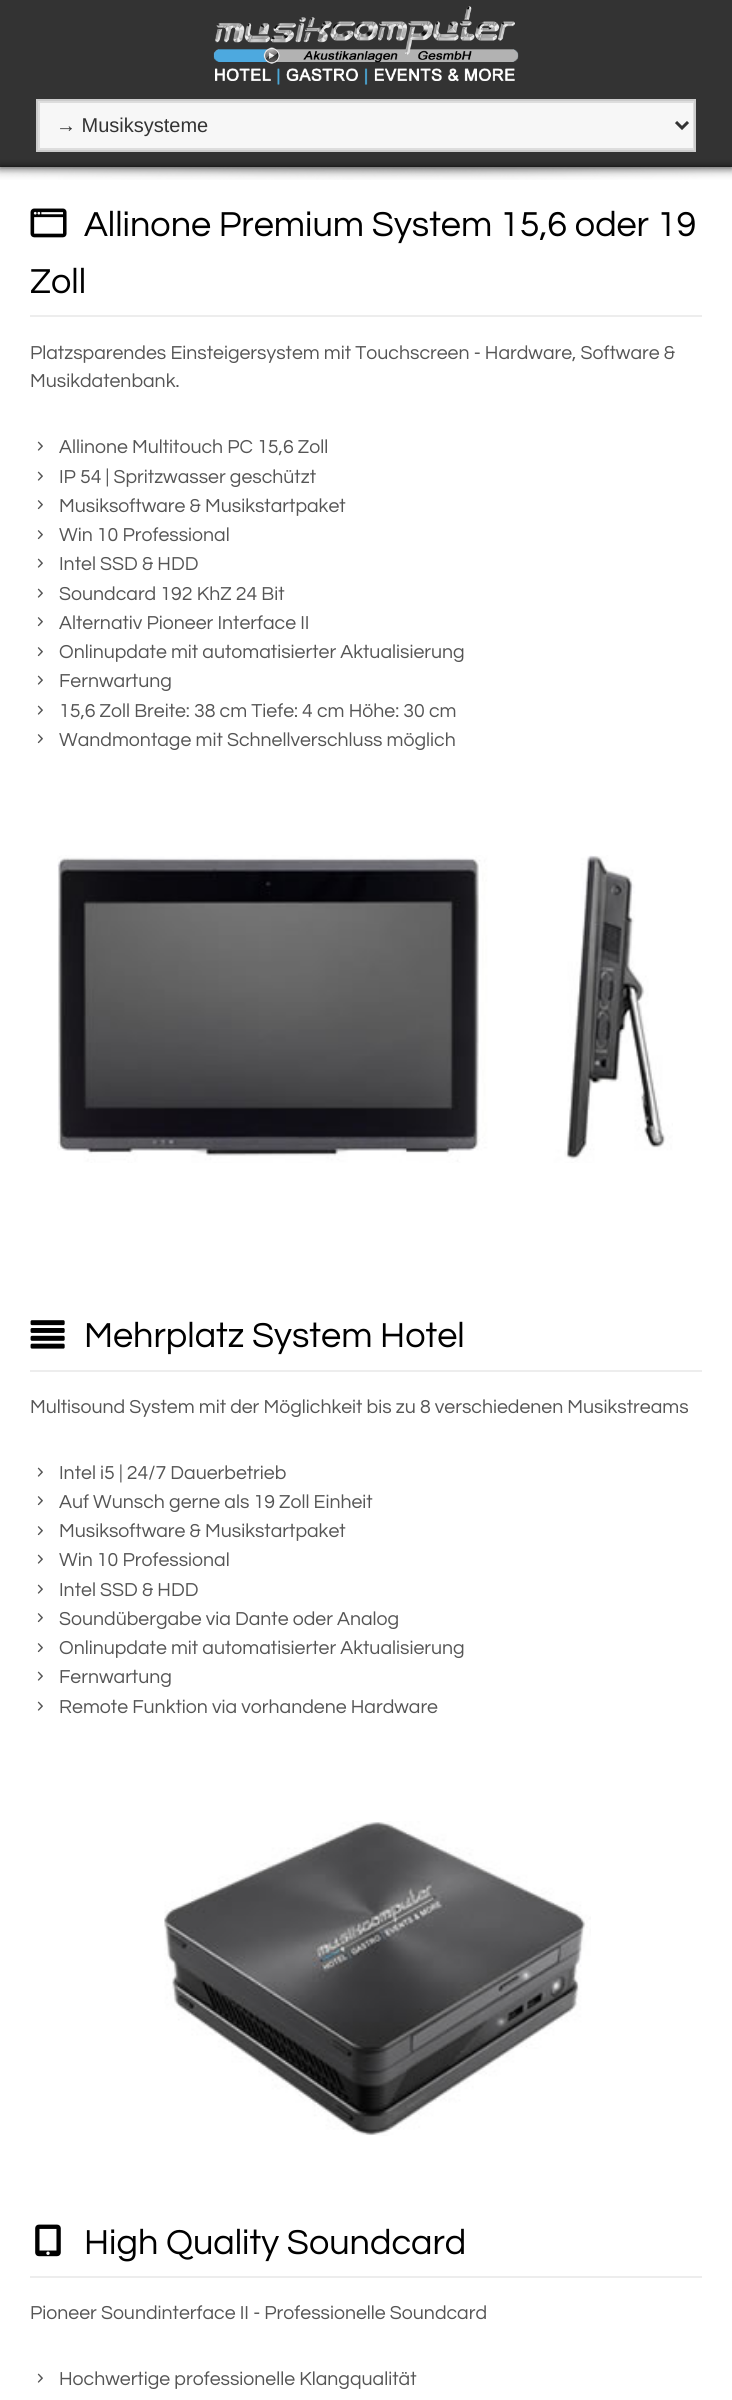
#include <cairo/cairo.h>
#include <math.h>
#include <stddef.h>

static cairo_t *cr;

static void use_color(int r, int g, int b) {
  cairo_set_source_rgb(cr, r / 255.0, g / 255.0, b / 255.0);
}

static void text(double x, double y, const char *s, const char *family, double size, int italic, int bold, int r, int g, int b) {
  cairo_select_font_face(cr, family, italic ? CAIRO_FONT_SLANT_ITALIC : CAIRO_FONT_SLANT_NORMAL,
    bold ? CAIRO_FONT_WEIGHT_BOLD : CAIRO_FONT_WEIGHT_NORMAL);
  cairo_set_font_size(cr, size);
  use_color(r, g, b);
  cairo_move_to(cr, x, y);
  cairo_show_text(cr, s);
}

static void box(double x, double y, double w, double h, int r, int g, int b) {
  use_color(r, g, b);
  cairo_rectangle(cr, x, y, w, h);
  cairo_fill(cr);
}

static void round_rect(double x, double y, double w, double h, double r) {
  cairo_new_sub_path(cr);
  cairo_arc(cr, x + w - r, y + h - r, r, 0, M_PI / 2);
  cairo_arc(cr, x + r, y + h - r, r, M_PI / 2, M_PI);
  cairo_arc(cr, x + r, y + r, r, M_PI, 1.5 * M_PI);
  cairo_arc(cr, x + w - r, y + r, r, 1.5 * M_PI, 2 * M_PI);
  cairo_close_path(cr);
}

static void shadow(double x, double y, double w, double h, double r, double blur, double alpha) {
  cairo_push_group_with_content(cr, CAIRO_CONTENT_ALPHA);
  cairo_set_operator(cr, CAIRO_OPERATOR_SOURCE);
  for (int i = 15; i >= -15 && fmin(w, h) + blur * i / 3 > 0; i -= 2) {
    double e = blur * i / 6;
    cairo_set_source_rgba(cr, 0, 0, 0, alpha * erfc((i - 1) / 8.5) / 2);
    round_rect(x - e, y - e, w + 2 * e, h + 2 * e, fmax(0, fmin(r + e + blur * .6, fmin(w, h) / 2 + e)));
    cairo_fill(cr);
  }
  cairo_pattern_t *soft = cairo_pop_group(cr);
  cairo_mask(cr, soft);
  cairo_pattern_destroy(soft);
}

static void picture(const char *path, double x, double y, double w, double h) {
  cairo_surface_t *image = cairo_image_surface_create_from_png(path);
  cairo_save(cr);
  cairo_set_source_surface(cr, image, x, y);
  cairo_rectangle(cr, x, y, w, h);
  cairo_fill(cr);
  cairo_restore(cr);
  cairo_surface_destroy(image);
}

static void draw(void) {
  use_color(255, 255, 255);
  cairo_paint(cr);
  cairo_save(cr);
  cairo_rectangle(cr, 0, 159, 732, 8);
  cairo_clip(cr);
  use_color(68, 68, 68);
  shadow(0, 167, 732, 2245, 0, 4, 1);
  cairo_restore(cr);
  picture("img_02.png", 0, 166, 732, 14);
  cairo_save(cr);
  cairo_set_fill_rule(cr, CAIRO_FILL_RULE_EVEN_ODD);
  cairo_new_path(cr);
  cairo_move_to(cr, 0, 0);
  cairo_line_to(cr, 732, 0);
  cairo_line_to(cr, 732, 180);
  cairo_line_to(cr, 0, 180);
  cairo_close_path(cr);
  cairo_move_to(cr, 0, 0);
  cairo_line_to(cr, 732, 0);
  cairo_line_to(cr, 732, 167);
  cairo_line_to(cr, 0, 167);
  cairo_close_path(cr);
  cairo_clip(cr);
  use_color(68, 68, 68);
  shadow(0, 0, 732, 167, 0, 4, 1);
  cairo_restore(cr);
  cairo_set_source_rgba(cr, 0, 0, 0, 0.8);
  cairo_rectangle(cr, 0, 0, 732, 167);
  cairo_fill(cr);
  picture("img_01.png", 213, 6, 306, 79);
  use_color(247, 247, 247);
  cairo_rectangle(cr, 39, 102, 655, 47);
  cairo_fill_preserve(cr);
  use_color(221, 221, 221);
  cairo_stroke(cr);
  cairo_rectangle(cr, 37, 100, 658, 51);
  use_color(204, 204, 204);
  cairo_stroke(cr);
  cairo_new_path(cr);
  cairo_move_to(cr, 676, 122);
  cairo_line_to(cr, 682, 128);
  cairo_line_to(cr, 688, 122);
  use_color(51, 51, 51);
  cairo_set_line_width(cr, 3);
  cairo_stroke(cr);
  box(30, 315, 672, 2, 237, 237, 237);
  picture("img_03.png", 30, 208, 37, 30);
  picture("img_04.png", 37, 441, 6, 10);
  picture("img_04.png", 37, 471, 6, 10);
  picture("img_05.png", 37, 500, 6, 10);
  picture("img_05.png", 37, 530, 6, 10);
  picture("img_04.png", 37, 558, 6, 10);
  picture("img_04.png", 37, 588, 6, 10);
  picture("img_05.png", 37, 617, 6, 10);
  picture("img_05.png", 37, 647, 6, 10);
  picture("img_04.png", 37, 675, 6, 10);
  picture("img_04.png", 37, 705, 6, 10);
  picture("img_05.png", 37, 734, 6, 10);
  picture("img_06.png", 57, 855, 616, 308);
  box(30, 1370, 672, 2, 237, 237, 237);
  picture("img_07.png", 30, 1320, 35, 29);
  picture("img_04.png", 37, 1467, 6, 10);
  picture("img_05.png", 37, 1496, 6, 10);
  picture("img_05.png", 37, 1526, 6, 10);
  picture("img_04.png", 37, 1554, 6, 10);
  picture("img_04.png", 37, 1584, 6, 10);
  picture("img_05.png", 37, 1613, 6, 10);
  picture("img_05.png", 37, 1643, 6, 10);
  picture("img_04.png", 37, 1671, 6, 10);
  picture("img_04.png", 37, 1701, 6, 10);
  picture("img_08.png", 164, 1821, 427, 315);
  box(30, 2276, 672, 2, 237, 237, 237);
  picture("img_09.png", 35, 2224, 26, 33);
  picture("img_04.png", 37, 2373, 6, 10);
  text(56, 132, "→ Musiksysteme", "Liberation Sans", 20, 0, 0, 51, 51, 51);
  text(84, 236, "Allinone Premium System 15,6 oder 19", "Questrial", 36, 0, 0, 0, 0, 0);
  text(30, 293, "Zoll", "Questrial", 36, 0, 0, 0, 0, 0);
  text(30, 359, "Platzsparendes Einsteigersystem mit Touchscreen - Hardware, Software &", "Questrial", 19.5, 0, 0, 85, 85, 85);
  text(30, 387, "Musikdatenbank.", "Questrial", 19.5, 0, 0, 85, 85, 85);
  text(59, 453, "Allinone Multitouch PC 15,6 Zoll", "Questrial", 19.5, 0, 0, 85, 85, 85);
  text(59, 483, "IP 54 | Spritzwasser geschützt", "Questrial", 19.5, 0, 0, 85, 85, 85);
  text(59, 512, "Musiksoftware & Musikstartpaket", "Questrial", 19.5, 0, 0, 85, 85, 85);
  text(59, 541, "Win 10 Professional", "Questrial", 19.5, 0, 0, 85, 85, 85);
  text(59, 570, "Intel SSD & HDD", "Questrial", 19.5, 0, 0, 85, 85, 85);
  text(59, 600, "Soundcard 192 KhZ 24 Bit", "Questrial", 19.5, 0, 0, 85, 85, 85);
  text(59, 629, "Alternativ Pioneer Interface II", "Questrial", 19.5, 0, 0, 85, 85, 85);
  text(59, 658, "Onlinupdate mit automatisierter Aktualisierung", "Questrial", 19.5, 0, 0, 85, 85, 85);
  text(59, 687, "Fernwartung", "Questrial", 19.5, 0, 0, 85, 85, 85);
  text(59, 717, "15,6 Zoll Breite: 38 cm Tiefe: 4 cm Höhe: 30 cm", "Questrial", 19.5, 0, 0, 85, 85, 85);
  text(59, 746, "Wandmontage mit Schnellverschluss möglich", "Questrial", 19.5, 0, 0, 85, 85, 85);
  text(84, 1347, "Mehrplatz System Hotel", "Questrial", 36, 0, 0, 0, 0, 0);
  text(30, 1413, "Multisound System mit der Möglichkeit bis zu 8 verschiedenen Musikstreams", "Questrial", 19.5, 0, 0, 85, 85, 85);
  text(59, 1479, "Intel i5 | 24/7 Dauerbetrieb", "Questrial", 19.5, 0, 0, 85, 85, 85);
  text(59, 1508, "Auf Wunsch gerne als 19 Zoll Einheit", "Questrial", 19.5, 0, 0, 85, 85, 85);
  text(59, 1537, "Musiksoftware & Musikstartpaket", "Questrial", 19.5, 0, 0, 85, 85, 85);
  text(59, 1566, "Win 10 Professional", "Questrial", 19.5, 0, 0, 85, 85, 85);
  text(59, 1596, "Intel SSD & HDD", "Questrial", 19.5, 0, 0, 85, 85, 85);
  text(59, 1625, "Soundübergabe via Dante oder Analog", "Questrial", 19.5, 0, 0, 85, 85, 85);
  text(59, 1654, "Onlinupdate mit automatisierter Aktualisierung", "Questrial", 19.5, 0, 0, 85, 85, 85);
  text(59, 1683, "Fernwartung", "Questrial", 19.5, 0, 0, 85, 85, 85);
  text(59, 1713, "Remote Funktion via vorhandene Hardware", "Questrial", 19.5, 0, 0, 85, 85, 85);
  text(84, 2254, "High Quality Soundcard", "Questrial", 36, 0, 0, 0, 0, 0);
  text(30, 2319, "Pioneer Soundinterface II - Professionelle Soundcard", "Questrial", 19.5, 0, 0, 85, 85, 85);
  text(59, 2385, "Hochwertige professionelle Klangqualität", "Questrial", 19.5, 0, 0, 85, 85, 85);
}

int main(void) {
  cairo_surface_t *surface = cairo_image_surface_create(CAIRO_FORMAT_RGB24, 732, 2400);
  cr = cairo_create(surface);
  cairo_font_options_t *options = cairo_font_options_create();
  cairo_font_options_set_hint_metrics(options, CAIRO_HINT_METRICS_OFF);
  cairo_font_options_set_hint_style(options, CAIRO_HINT_STYLE_NONE);
  cairo_set_font_options(cr, options);
  cairo_set_miter_limit(cr, 4);
  draw();
  cairo_surface_write_to_png(surface, "out.png");
  cairo_font_options_destroy(options);
  cairo_destroy(cr);
  cairo_surface_destroy(surface);
  return 0;
}
